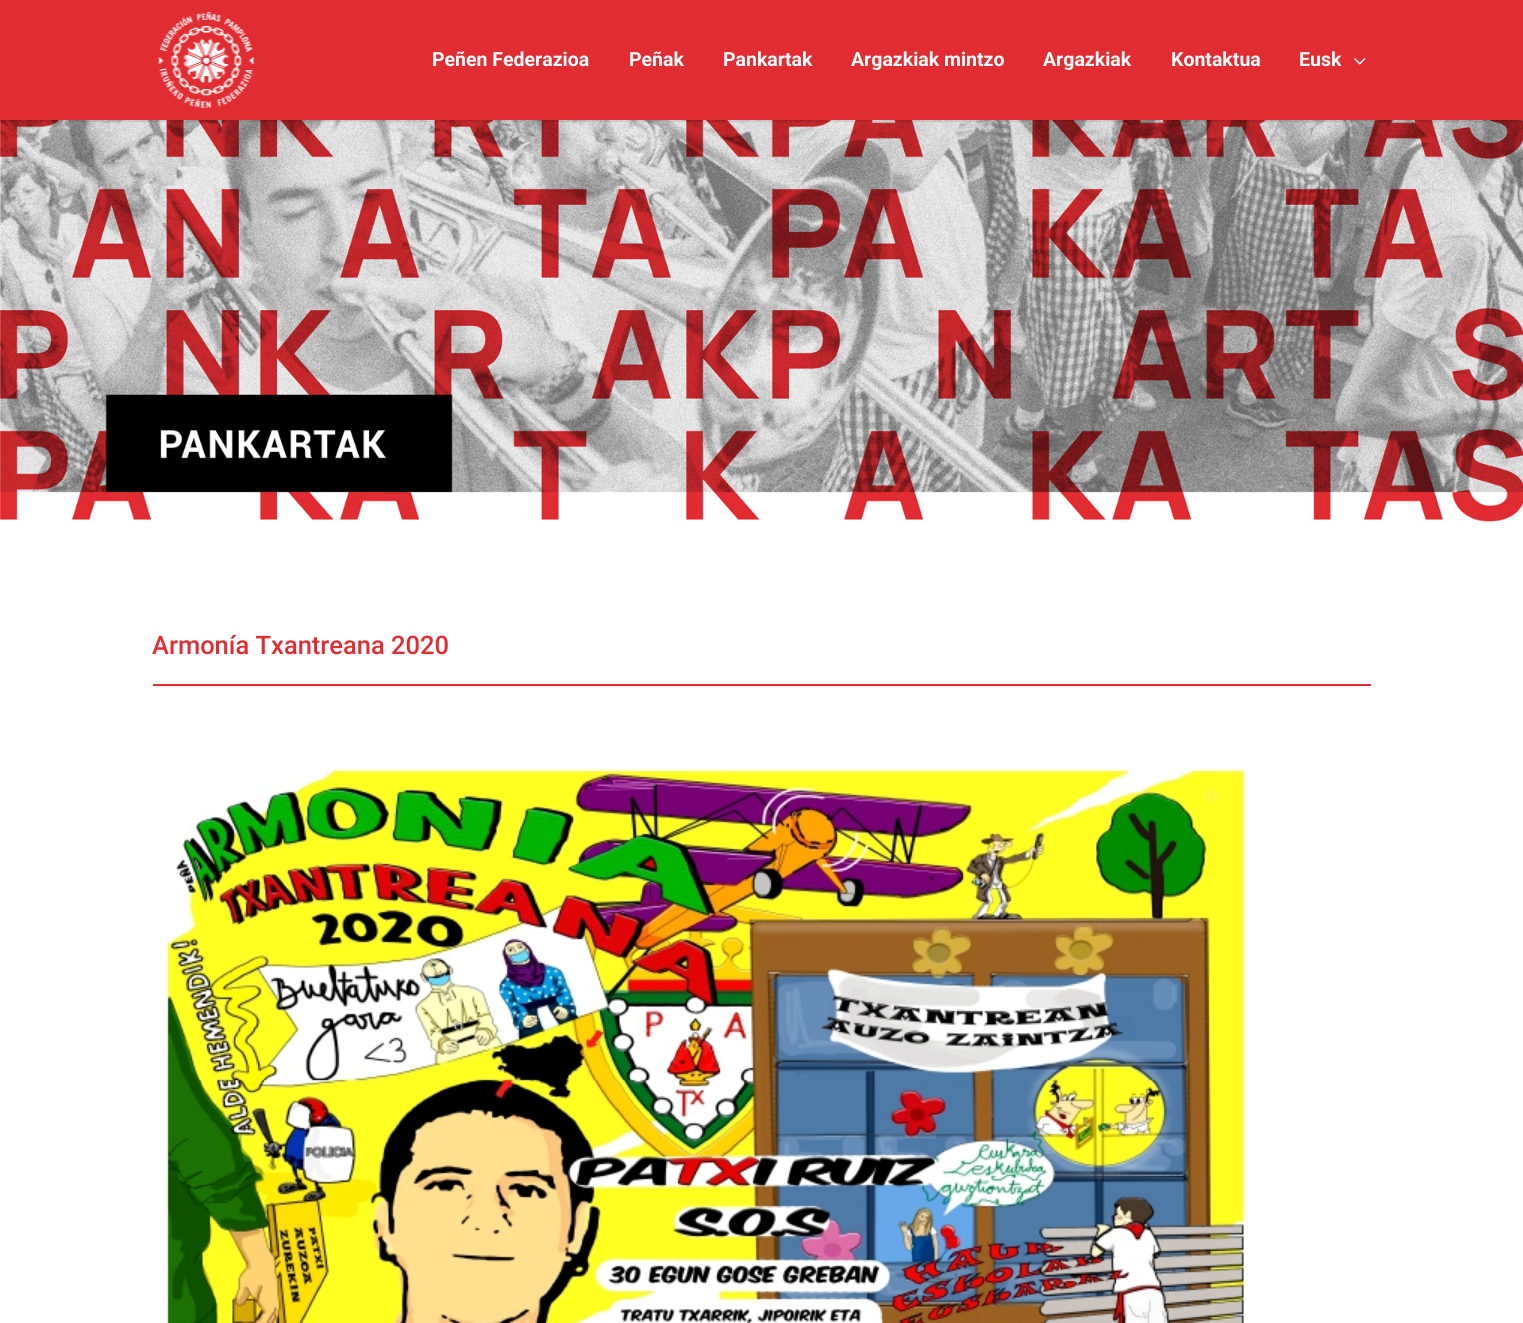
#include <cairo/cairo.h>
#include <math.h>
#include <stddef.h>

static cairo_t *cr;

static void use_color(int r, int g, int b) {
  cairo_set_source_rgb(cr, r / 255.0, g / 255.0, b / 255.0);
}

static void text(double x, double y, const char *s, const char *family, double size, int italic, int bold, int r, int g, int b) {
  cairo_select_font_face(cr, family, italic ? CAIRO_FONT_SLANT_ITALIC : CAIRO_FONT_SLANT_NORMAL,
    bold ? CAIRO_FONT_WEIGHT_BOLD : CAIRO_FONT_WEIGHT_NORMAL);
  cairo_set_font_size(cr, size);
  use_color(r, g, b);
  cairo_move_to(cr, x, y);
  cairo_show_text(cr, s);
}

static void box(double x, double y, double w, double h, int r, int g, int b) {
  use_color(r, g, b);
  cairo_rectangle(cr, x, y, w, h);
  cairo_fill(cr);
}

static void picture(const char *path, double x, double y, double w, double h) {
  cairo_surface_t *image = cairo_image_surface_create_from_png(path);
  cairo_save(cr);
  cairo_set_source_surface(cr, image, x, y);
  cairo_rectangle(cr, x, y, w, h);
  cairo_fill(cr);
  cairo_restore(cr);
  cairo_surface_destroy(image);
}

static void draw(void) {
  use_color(255, 255, 255);
  cairo_paint(cr);
  picture("img_03.png", 0, 120, 1523, 405);
  cairo_set_source_rgba(cr, 0, 0, 0, 0.1);
  cairo_rectangle(cr, 0, 120, 1523, 2);
  cairo_fill(cr);
  box(0, 0, 1523, 120, 225, 45, 50);
  picture("img_01.png", 158, 12, 96, 96);
  picture("img_02.png", 1354, 58, 12, 7);
  box(153, 684, 1218, 2, 225, 45, 50);
  picture("img_04.png", 165, 765, 1086, 558);
  text(432, 66, "Peñen Federazioa", "Roboto", 19.5, 0, 1, 255, 255, 255);
  text(629, 66, "Peñak", "Roboto", 19.5, 0, 1, 255, 255, 255);
  text(723, 66, "Pankartak", "Roboto", 19.5, 0, 1, 255, 255, 255);
  text(851, 66, "Argazkiak mintzo", "Roboto", 19.5, 0, 1, 255, 255, 255);
  text(1043, 66, "Argazkiak", "Roboto", 19.5, 0, 1, 255, 255, 255);
  text(1171, 66, "Kontaktua", "Roboto", 19.5, 0, 1, 255, 255, 255);
  text(1299, 66, "Eusk", "Roboto", 19.5, 0, 1, 255, 255, 255);
  text(152, 654, "Armonía Txantreana 2020", "Roboto Medium", 25.5, 0, 0, 225, 45, 50);
}

int main(void) {
  cairo_surface_t *surface = cairo_image_surface_create(CAIRO_FORMAT_RGB24, 1523, 1323);
  cr = cairo_create(surface);
  cairo_font_options_t *options = cairo_font_options_create();
  cairo_font_options_set_hint_metrics(options, CAIRO_HINT_METRICS_OFF);
  cairo_font_options_set_hint_style(options, CAIRO_HINT_STYLE_NONE);
  cairo_set_font_options(cr, options);
  cairo_set_miter_limit(cr, 4);
  draw();
  cairo_surface_write_to_png(surface, "out.png");
  cairo_font_options_destroy(options);
  cairo_destroy(cr);
  cairo_surface_destroy(surface);
  return 0;
}
